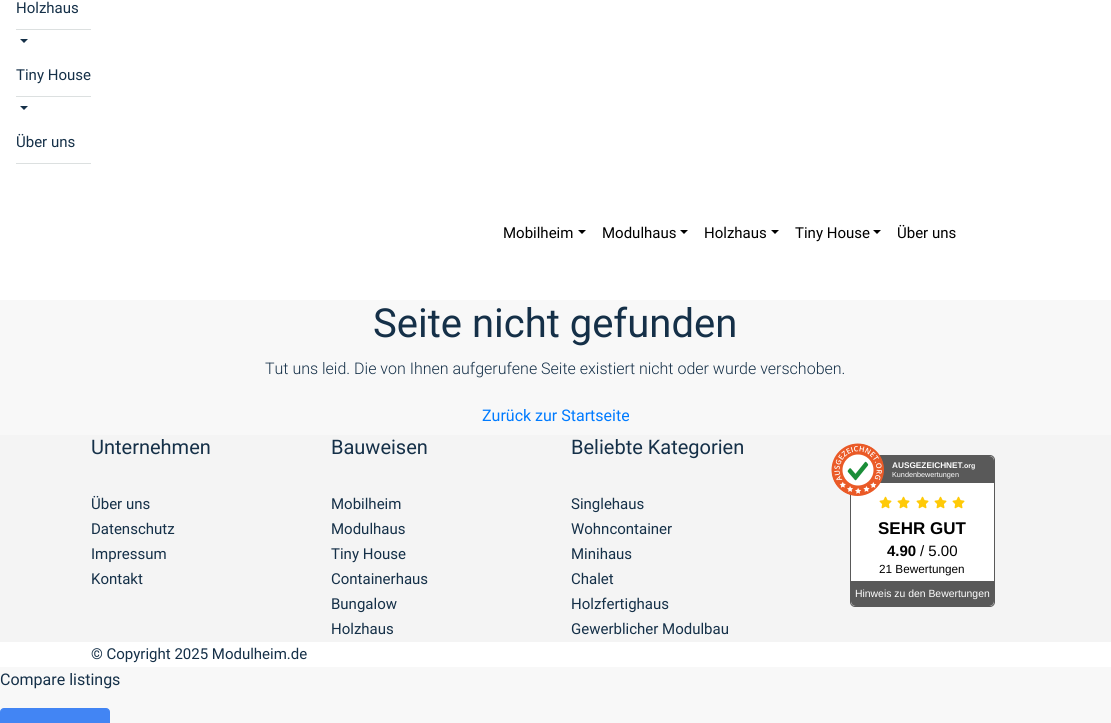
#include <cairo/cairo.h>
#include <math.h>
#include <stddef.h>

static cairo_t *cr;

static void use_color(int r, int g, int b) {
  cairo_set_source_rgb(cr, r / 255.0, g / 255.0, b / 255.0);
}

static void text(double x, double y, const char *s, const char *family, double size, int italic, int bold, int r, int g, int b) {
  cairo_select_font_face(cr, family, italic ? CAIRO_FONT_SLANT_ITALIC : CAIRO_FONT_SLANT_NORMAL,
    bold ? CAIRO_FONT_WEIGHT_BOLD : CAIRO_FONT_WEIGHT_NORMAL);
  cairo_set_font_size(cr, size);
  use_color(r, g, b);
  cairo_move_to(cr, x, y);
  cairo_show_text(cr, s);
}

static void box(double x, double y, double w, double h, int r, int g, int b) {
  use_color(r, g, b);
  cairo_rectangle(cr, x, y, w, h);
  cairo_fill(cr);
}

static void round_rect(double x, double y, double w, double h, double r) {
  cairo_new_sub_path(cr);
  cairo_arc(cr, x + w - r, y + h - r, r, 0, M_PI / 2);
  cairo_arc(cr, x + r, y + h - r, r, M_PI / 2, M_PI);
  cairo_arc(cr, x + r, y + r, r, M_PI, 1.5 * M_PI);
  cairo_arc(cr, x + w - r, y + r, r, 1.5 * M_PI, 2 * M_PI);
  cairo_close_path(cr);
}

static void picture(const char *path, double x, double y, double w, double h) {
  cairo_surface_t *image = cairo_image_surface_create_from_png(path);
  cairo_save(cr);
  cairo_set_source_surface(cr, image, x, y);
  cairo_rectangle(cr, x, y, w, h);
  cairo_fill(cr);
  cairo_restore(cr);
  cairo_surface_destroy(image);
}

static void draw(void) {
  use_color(248, 248, 248);
  cairo_paint(cr);
  box(0, 0, 1111, 300, 255, 255, 255);
  box(16, 29, 75, 1, 220, 224, 224);
  use_color(21, 48, 72);
  cairo_new_path(cr);
  cairo_move_to(cr, 20, 39);
  cairo_line_to(cr, 28, 39);
  cairo_line_to(cr, 24, 43);
  cairo_close_path(cr);
  cairo_fill(cr);
  box(16, 96, 75, 1, 220, 224, 224);
  use_color(21, 48, 72);
  cairo_new_path(cr);
  cairo_move_to(cr, 20, 106);
  cairo_line_to(cr, 28, 106);
  cairo_line_to(cr, 24, 110);
  cairo_close_path(cr);
  cairo_fill(cr);
  box(16, 163, 75, 1, 220, 224, 224);
  use_color(0, 0, 0);
  cairo_new_path(cr);
  cairo_move_to(cr, 578, 230);
  cairo_line_to(cr, 586, 230);
  cairo_line_to(cr, 582, 234);
  cairo_close_path(cr);
  cairo_fill(cr);
  cairo_new_path(cr);
  cairo_move_to(cr, 680, 230);
  cairo_line_to(cr, 688, 230);
  cairo_line_to(cr, 684, 234);
  cairo_close_path(cr);
  cairo_fill(cr);
  cairo_new_path(cr);
  cairo_move_to(cr, 771, 230);
  cairo_line_to(cr, 779, 230);
  cairo_line_to(cr, 775, 234);
  cairo_close_path(cr);
  cairo_fill(cr);
  cairo_new_path(cr);
  cairo_move_to(cr, 873, 230);
  cairo_line_to(cr, 881, 230);
  cairo_line_to(cr, 877, 234);
  cairo_close_path(cr);
  cairo_fill(cr);
  box(0, 435, 1111, 207, 244, 244, 244);
  round_rect(850.5, 455.5, 144, 151, 4.5);
  use_color(89, 89, 89);
  cairo_set_line_width(cr, 1);
  cairo_stroke(cr);
  cairo_new_path(cr);
  cairo_move_to(cr, 856, 456);
  cairo_line_to(cr, 989, 456);
  cairo_curve_to(cr, 992, 456, 994, 458, 994, 461);
  cairo_line_to(cr, 994, 483);
  cairo_line_to(cr, 851, 483);
  cairo_line_to(cr, 851, 461);
  cairo_curve_to(cr, 851, 458, 853, 456, 856, 456);
  cairo_close_path(cr);
  cairo_fill(cr);
  box(851, 483, 143, 98, 255, 255, 255);
  picture("img_01.png", 831, 443, 53, 53);
  picture("img_02.png", 879, 496, 13, 13);
  picture("img_02.png", 897, 496, 13, 13);
  picture("img_02.png", 916, 496, 13, 13);
  picture("img_02.png", 934, 496, 13, 13);
  picture("img_02.png", 952, 496, 13, 13);
  use_color(89, 89, 89);
  cairo_new_path(cr);
  cairo_move_to(cr, 851, 581);
  cairo_line_to(cr, 994, 581);
  cairo_line_to(cr, 994, 601);
  cairo_curve_to(cr, 994, 604, 992, 606, 989, 606);
  cairo_line_to(cr, 856, 606);
  cairo_curve_to(cr, 853, 606, 851, 604, 851, 601);
  cairo_close_path(cr);
  cairo_fill(cr);
  box(0, 642, 1111, 25, 255, 255, 255);
  use_color(66, 133, 244);
  round_rect(0.5, 708.5, 109, 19, 3.5);
  cairo_fill_preserve(cr);
  cairo_stroke(cr);
  text(16, 13, "Holzhaus", "Roboto", 15, 0, 0, 21, 48, 72);
  text(16, 80, "Tiny House", "Roboto", 15, 0, 0, 21, 48, 72);
  text(16, 147, "Über uns", "Roboto", 15, 0, 0, 21, 48, 72);
  text(503, 238, "Mobilheim", "Roboto", 15, 0, 0, 0, 0, 0);
  text(602, 238, "Modulhaus", "Roboto", 15, 0, 0, 0, 0, 0);
  text(704, 238, "Holzhaus", "Roboto", 15, 0, 0, 0, 0, 0);
  text(795, 238, "Tiny House", "Roboto", 15, 0, 0, 0, 0, 0);
  text(897, 238, "Über uns", "Roboto", 15, 0, 0, 0, 0, 0);
  text(373, 337, "Seite nicht gefunden", "Roboto", 40, 0, 0, 21, 48, 72);
  text(265, 374, "Tut uns leid. Die von Ihnen aufgerufene Seite existiert nicht oder wurde verschoben.", "Roboto Light", 16, 0, 0, 21, 48, 72);
  text(482, 421, "Zurück zur Startseite", "Roboto", 16, 0, 0, 0, 123, 255);
  text(91, 454, "Unternehmen", "Roboto", 20, 0, 0, 21, 48, 72);
  text(91, 509, "Über uns", "Roboto", 15, 0, 0, 21, 48, 72);
  text(91, 534, "Datenschutz", "Roboto", 15, 0, 0, 21, 48, 72);
  text(91, 559, "Impressum", "Roboto", 15, 0, 0, 21, 48, 72);
  text(91, 584, "Kontakt", "Roboto", 15, 0, 0, 21, 48, 72);
  text(331, 454, "Bauweisen", "Roboto", 20, 0, 0, 21, 48, 72);
  text(331, 509, "Mobilheim", "Roboto", 15, 0, 0, 21, 48, 72);
  text(331, 534, "Modulhaus", "Roboto", 15, 0, 0, 21, 48, 72);
  text(331, 559, "Tiny House", "Roboto", 15, 0, 0, 21, 48, 72);
  text(331, 584, "Containerhaus", "Roboto", 15, 0, 0, 21, 48, 72);
  text(331, 609, "Bungalow", "Roboto", 15, 0, 0, 21, 48, 72);
  text(331, 634, "Holzhaus", "Roboto", 15, 0, 0, 21, 48, 72);
  text(571, 454, "Beliebte Kategorien", "Roboto", 20, 0, 0, 21, 48, 72);
  text(571, 509, "Singlehaus", "Roboto", 15, 0, 0, 21, 48, 72);
  text(571, 534, "Wohncontainer", "Roboto", 15, 0, 0, 21, 48, 72);
  text(571, 559, "Minihaus", "Roboto", 15, 0, 0, 21, 48, 72);
  text(571, 584, "Chalet", "Roboto", 15, 0, 0, 21, 48, 72);
  text(571, 609, "Holzfertighaus", "Roboto", 15, 0, 0, 21, 48, 72);
  text(571, 634, "Gewerblicher Modulbau", "Roboto", 15, 0, 0, 21, 48, 72);
  text(892, 468, "AUSGEZEICHNET", "Liberation Sans", 8.25, 0, 1, 255, 255, 255);
  text(962, 468, ".org", "Liberation Sans", 7, 0, 1, 255, 255, 255);
  text(892, 477, "Kundenbewertungen", "Liberation Sans", 7.25, 0, 0, 255, 255, 255);
  text(878, 534, "SEHR GUT", "Liberation Sans", 17, 0, 1, 0, 0, 0);
  text(887, 556, "4.90", "Liberation Sans", 15, 0, 1, 0, 0, 0);
  text(920, 556, "/ 5.00", "Liberation Sans", 15, 0, 0, 0, 0, 0);
  text(879, 573, "21 Bewertungen", "Liberation Sans", 11.75, 0, 0, 0, 0, 0);
  text(855, 597, "Hinweis zu den Bewertungen", "Liberation Sans", 10.4, 0, 0, 255, 255, 255);
  text(91, 659, "© Copyright 2025 Modulheim.de", "Roboto", 15, 0, 0, 21, 48, 72);
  text(0, 685, "Compare listings", "Roboto", 16, 0, 0, 21, 48, 72);
}

int main(void) {
  cairo_surface_t *surface = cairo_image_surface_create(CAIRO_FORMAT_RGB24, 1111, 723);
  cr = cairo_create(surface);
  cairo_font_options_t *options = cairo_font_options_create();
  cairo_font_options_set_hint_metrics(options, CAIRO_HINT_METRICS_OFF);
  cairo_font_options_set_hint_style(options, CAIRO_HINT_STYLE_NONE);
  cairo_set_font_options(cr, options);
  cairo_set_miter_limit(cr, 4);
  draw();
  cairo_surface_write_to_png(surface, "out.png");
  cairo_font_options_destroy(options);
  cairo_destroy(cr);
  cairo_surface_destroy(surface);
  return 0;
}
